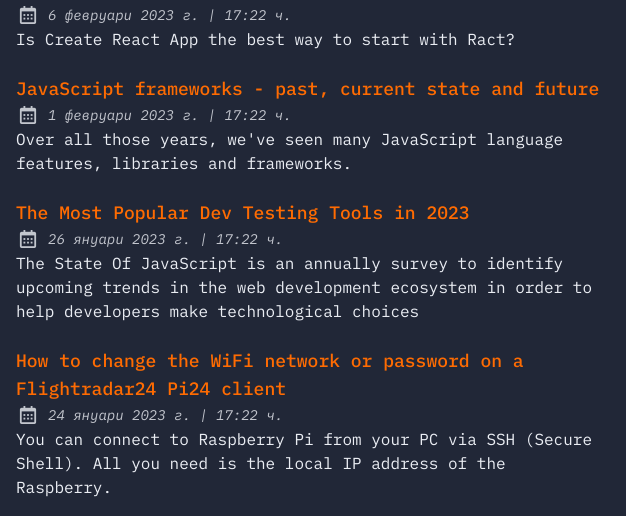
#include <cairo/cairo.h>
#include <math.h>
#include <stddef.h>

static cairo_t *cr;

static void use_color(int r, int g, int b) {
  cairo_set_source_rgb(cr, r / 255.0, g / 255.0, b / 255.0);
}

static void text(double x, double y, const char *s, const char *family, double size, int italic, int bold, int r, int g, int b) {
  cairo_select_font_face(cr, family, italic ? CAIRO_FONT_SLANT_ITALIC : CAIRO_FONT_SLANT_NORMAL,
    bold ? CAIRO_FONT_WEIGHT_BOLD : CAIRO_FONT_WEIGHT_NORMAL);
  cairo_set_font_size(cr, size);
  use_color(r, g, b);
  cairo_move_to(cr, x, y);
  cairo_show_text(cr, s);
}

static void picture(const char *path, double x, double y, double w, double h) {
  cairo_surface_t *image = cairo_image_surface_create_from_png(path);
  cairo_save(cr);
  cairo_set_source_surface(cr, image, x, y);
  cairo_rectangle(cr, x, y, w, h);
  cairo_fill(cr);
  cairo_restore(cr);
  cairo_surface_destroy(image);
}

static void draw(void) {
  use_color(33, 39, 55);
  cairo_paint(cr);
  picture("img_01.png", 19, 6, 18, 18);
  picture("img_01.png", 19, 106, 18, 18);
  picture("img_01.png", 19, 230, 18, 18);
  picture("img_01.png", 19, 406, 18, 18);
  text(48, 20, "6 февруари 2023 г. | 17:22 ч.", "IBM Plex Mono", 14, 1, 0, 194, 197, 205);
  text(16, 45, "Is Create React App the best way to start with Ract?", "IBM Plex Mono", 16, 0, 0, 234, 237, 243);
  text(16, 95, "JavaScript frameworks - past, current state and future", "IBM Plex Mono Medium", 18, 0, 0, 255, 107, 1);
  text(48, 120, "1 февруари 2023 г. | 17:22 ч.", "IBM Plex Mono", 14, 1, 0, 194, 197, 205);
  text(16, 145, "Over all those years, we've seen many JavaScript language", "IBM Plex Mono", 16, 0, 0, 234, 237, 243);
  text(16, 169, "features, libraries and frameworks.", "IBM Plex Mono", 16, 0, 0, 234, 237, 243);
  text(16, 219, "The Most Popular Dev Testing Tools in 2023", "IBM Plex Mono Medium", 18, 0, 0, 255, 107, 1);
  text(48, 244, "26 януари 2023 г. | 17:22 ч.", "IBM Plex Mono", 14, 1, 0, 194, 197, 205);
  text(16, 269, "The State Of JavaScript is an annually survey to identify", "IBM Plex Mono", 16, 0, 0, 234, 237, 243);
  text(16, 293, "upcoming trends in the web development ecosystem in order to", "IBM Plex Mono", 16, 0, 0, 234, 237, 243);
  text(16, 317, "help developers make technological choices", "IBM Plex Mono", 16, 0, 0, 234, 237, 243);
  text(16, 367, "How to change the WiFi network or password on a", "IBM Plex Mono Medium", 18, 0, 0, 255, 107, 1);
  text(16, 395, "Flightradar24 Pi24 client", "IBM Plex Mono Medium", 18, 0, 0, 255, 107, 1);
  text(48, 420, "24 януари 2023 г. | 17:22 ч.", "IBM Plex Mono", 14, 1, 0, 194, 197, 205);
  text(16, 445, "You can connect to Raspberry Pi from your PC via SSH (Secure", "IBM Plex Mono", 16, 0, 0, 234, 237, 243);
  text(16, 469, "Shell). All you need is the local IP address of the", "IBM Plex Mono", 16, 0, 0, 234, 237, 243);
  text(16, 493, "Raspberry.", "IBM Plex Mono", 16, 0, 0, 234, 237, 243);
}

int main(void) {
  cairo_surface_t *surface = cairo_image_surface_create(CAIRO_FORMAT_RGB24, 626, 516);
  cr = cairo_create(surface);
  cairo_font_options_t *options = cairo_font_options_create();
  cairo_font_options_set_hint_metrics(options, CAIRO_HINT_METRICS_OFF);
  cairo_font_options_set_hint_style(options, CAIRO_HINT_STYLE_NONE);
  cairo_set_font_options(cr, options);
  cairo_set_miter_limit(cr, 4);
  draw();
  cairo_surface_write_to_png(surface, "out.png");
  cairo_font_options_destroy(options);
  cairo_destroy(cr);
  cairo_surface_destroy(surface);
  return 0;
}
